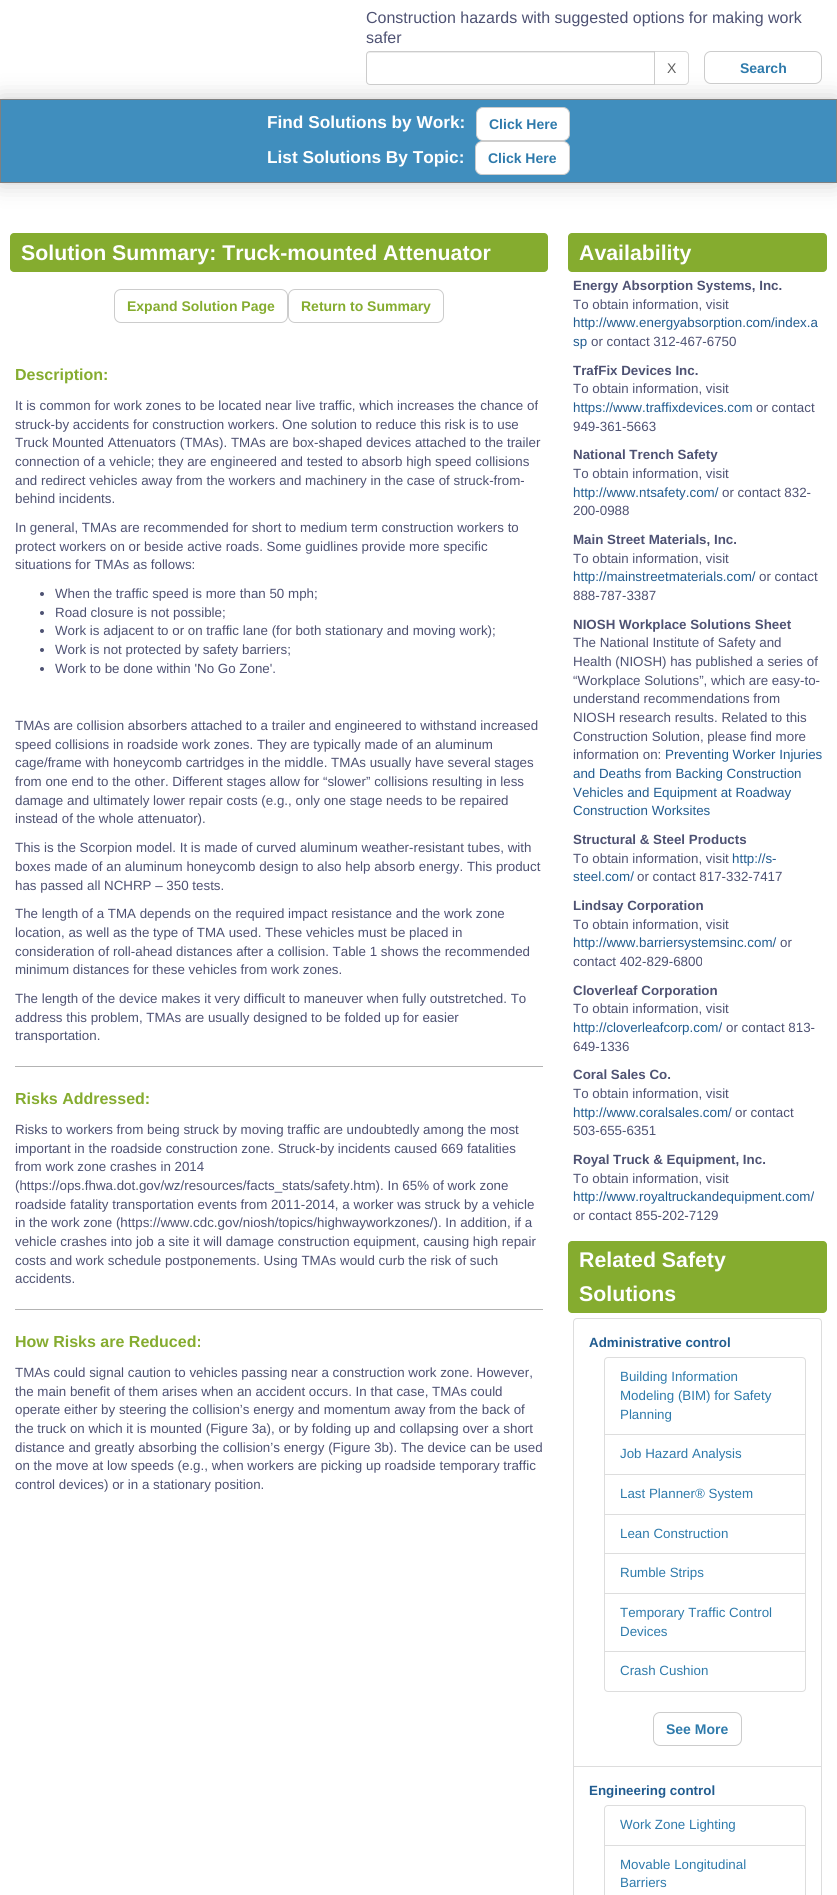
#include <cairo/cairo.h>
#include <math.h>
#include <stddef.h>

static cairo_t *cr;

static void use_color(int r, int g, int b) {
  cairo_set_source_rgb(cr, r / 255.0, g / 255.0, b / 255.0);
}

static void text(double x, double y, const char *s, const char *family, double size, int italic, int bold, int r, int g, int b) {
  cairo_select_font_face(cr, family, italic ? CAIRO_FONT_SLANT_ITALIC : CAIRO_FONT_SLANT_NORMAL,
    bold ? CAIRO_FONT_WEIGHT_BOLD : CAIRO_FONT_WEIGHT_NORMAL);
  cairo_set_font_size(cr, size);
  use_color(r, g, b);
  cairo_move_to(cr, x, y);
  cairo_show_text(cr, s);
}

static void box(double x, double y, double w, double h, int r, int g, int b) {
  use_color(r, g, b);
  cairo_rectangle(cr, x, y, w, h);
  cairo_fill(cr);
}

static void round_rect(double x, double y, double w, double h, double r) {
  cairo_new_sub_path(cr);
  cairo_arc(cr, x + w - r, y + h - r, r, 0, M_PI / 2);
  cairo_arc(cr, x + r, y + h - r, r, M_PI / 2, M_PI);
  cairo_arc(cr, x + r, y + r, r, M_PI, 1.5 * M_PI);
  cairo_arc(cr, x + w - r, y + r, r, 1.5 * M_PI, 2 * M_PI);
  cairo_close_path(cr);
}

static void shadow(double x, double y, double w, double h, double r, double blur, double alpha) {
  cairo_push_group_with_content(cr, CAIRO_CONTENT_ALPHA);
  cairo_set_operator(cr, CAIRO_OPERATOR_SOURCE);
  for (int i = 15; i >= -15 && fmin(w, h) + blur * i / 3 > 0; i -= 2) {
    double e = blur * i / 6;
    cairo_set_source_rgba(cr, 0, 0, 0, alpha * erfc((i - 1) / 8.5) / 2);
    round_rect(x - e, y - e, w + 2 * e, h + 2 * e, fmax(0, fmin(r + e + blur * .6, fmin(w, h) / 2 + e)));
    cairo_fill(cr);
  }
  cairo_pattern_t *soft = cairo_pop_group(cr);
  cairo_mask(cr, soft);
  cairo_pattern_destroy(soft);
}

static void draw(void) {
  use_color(255, 255, 255);
  cairo_paint(cr);
  use_color(0, 0, 0);
  shadow(0, 99, 837, 84, 0, 12, 0.2);
  use_color(255, 255, 255);
  cairo_new_path(cr);
  cairo_move_to(cr, 370, 51);
  cairo_line_to(cr, 655, 51);
  cairo_line_to(cr, 655, 85);
  cairo_line_to(cr, 370, 85);
  cairo_curve_to(cr, 368, 85, 366, 83, 366, 81);
  cairo_line_to(cr, 366, 55);
  cairo_curve_to(cr, 366, 53, 368, 51, 370, 51);
  cairo_close_path(cr);
  cairo_fill(cr);
  use_color(236, 236, 236);
  cairo_new_path(cr);
  cairo_move_to(cr, 370, 53);
  cairo_line_to(cr, 654, 53);
  cairo_line_to(cr, 654, 52);
  cairo_line_to(cr, 370, 52);
  cairo_curve_to(cr, 368, 52, 367, 54, 367, 56);
  cairo_curve_to(cr, 367, 54, 368, 53, 370, 53);
  cairo_close_path(cr);
  cairo_fill(cr);
  cairo_new_path(cr);
  cairo_move_to(cr, 370, 51.5);
  cairo_line_to(cr, 654.5, 51.5);
  cairo_line_to(cr, 654.5, 84.5);
  cairo_line_to(cr, 370, 84.5);
  cairo_curve_to(cr, 368, 84.5, 366.5, 83, 366.5, 81);
  cairo_line_to(cr, 366.5, 55);
  cairo_curve_to(cr, 366.5, 53, 368, 51.5, 370, 51.5);
  cairo_close_path(cr);
  use_color(204, 204, 204);
  cairo_set_line_width(cr, 1);
  cairo_stroke(cr);
  cairo_set_source_rgba(cr, 1, 1, 1, 0.8);
  cairo_new_path(cr);
  cairo_move_to(cr, 655, 51);
  cairo_line_to(cr, 685, 51);
  cairo_curve_to(cr, 687, 51, 689, 53, 689, 55);
  cairo_line_to(cr, 689, 81);
  cairo_curve_to(cr, 689, 83, 687, 85, 685, 85);
  cairo_line_to(cr, 655, 85);
  cairo_close_path(cr);
  cairo_fill(cr);
  cairo_set_source_rgba(cr, 0.8, 0.8, 0.8, 0.8);
  cairo_set_fill_rule(cr, CAIRO_FILL_RULE_EVEN_ODD);
  cairo_new_path(cr);
  cairo_move_to(cr, 655, 51);
  cairo_line_to(cr, 685, 51);
  cairo_curve_to(cr, 687, 51, 689, 53, 689, 55);
  cairo_line_to(cr, 689, 81);
  cairo_curve_to(cr, 689, 83, 687, 85, 685, 85);
  cairo_line_to(cr, 655, 85);
  cairo_close_path(cr);
  cairo_move_to(cr, 655, 52);
  cairo_line_to(cr, 685, 52);
  cairo_curve_to(cr, 686.5, 52, 688, 53.5, 688, 55);
  cairo_line_to(cr, 688, 81);
  cairo_curve_to(cr, 688, 82.5, 686.5, 84, 685, 84);
  cairo_line_to(cr, 655, 84);
  cairo_close_path(cr);
  cairo_fill(cr);
  use_color(255, 255, 255);
  round_rect(704.5, 51.5, 117, 32, 6.5);
  cairo_fill_preserve(cr);
  use_color(204, 204, 204);
  cairo_stroke(cr);
  use_color(64, 142, 190);
  cairo_rectangle(cr, 0.5, 99.5, 836, 83);
  cairo_fill_preserve(cr);
  use_color(128, 128, 128);
  cairo_stroke(cr);
  use_color(255, 255, 255);
  round_rect(476.5, 107.5, 93, 33, 6.5);
  cairo_fill_preserve(cr);
  use_color(204, 204, 204);
  cairo_stroke(cr);
  use_color(255, 255, 255);
  round_rect(475.5, 141.5, 94, 33, 6.5);
  cairo_fill_preserve(cr);
  use_color(204, 204, 204);
  cairo_stroke(cr);
  use_color(133, 172, 47);
  round_rect(10, 233, 538, 39, 4);
  cairo_fill(cr);
  round_rect(114.5, 289.5, 173, 33, 6.5);
  use_color(204, 204, 204);
  cairo_stroke(cr);
  round_rect(288.5, 289.5, 155, 33, 6.5);
  cairo_stroke(cr);
  use_color(78, 82, 115);
  cairo_arc(cr, 42, 594, 2, 0, 2 * M_PI);
  cairo_fill(cr);
  cairo_arc(cr, 42, 613, 2, 0, 2 * M_PI);
  cairo_fill(cr);
  cairo_arc(cr, 42, 631, 2, 0, 2 * M_PI);
  cairo_fill(cr);
  cairo_arc(cr, 42, 650, 2, 0, 2 * M_PI);
  cairo_fill(cr);
  cairo_arc(cr, 42, 669, 2, 0, 2 * M_PI);
  cairo_fill(cr);
  box(15, 1066, 528, 1, 179, 179, 179);
  box(15, 1309, 528, 1, 179, 179, 179);
  use_color(133, 172, 47);
  round_rect(568, 233, 259, 39, 4);
  cairo_fill(cr);
  round_rect(568, 1241, 259, 72, 4);
  cairo_fill(cr);
  cairo_new_path(cr);
  cairo_move_to(cr, 577, 1318.5);
  cairo_line_to(cr, 818, 1318.5);
  cairo_curve_to(cr, 820, 1318.5, 821.5, 1320, 821.5, 1322);
  cairo_line_to(cr, 821.5, 1766.5);
  cairo_line_to(cr, 573.5, 1766.5);
  cairo_line_to(cr, 573.5, 1322);
  cairo_curve_to(cr, 573.5, 1320, 575, 1318.5, 577, 1318.5);
  cairo_close_path(cr);
  use_color(221, 221, 221);
  cairo_stroke(cr);
  cairo_new_path(cr);
  cairo_move_to(cr, 608, 1357.5);
  cairo_line_to(cr, 802, 1357.5);
  cairo_curve_to(cr, 804, 1357.5, 805.5, 1359, 805.5, 1361);
  cairo_line_to(cr, 805.5, 1434.5);
  cairo_line_to(cr, 604.5, 1434.5);
  cairo_line_to(cr, 604.5, 1361);
  cairo_curve_to(cr, 604.5, 1359, 606, 1357.5, 608, 1357.5);
  cairo_close_path(cr);
  cairo_stroke(cr);
  cairo_rectangle(cr, 604.5, 1434.5, 201, 40);
  cairo_stroke(cr);
  cairo_rectangle(cr, 604.5, 1474.5, 201, 40);
  cairo_stroke(cr);
  cairo_rectangle(cr, 604.5, 1514.5, 201, 39);
  cairo_stroke(cr);
  cairo_rectangle(cr, 604.5, 1553.5, 201, 40);
  cairo_stroke(cr);
  cairo_rectangle(cr, 604.5, 1593.5, 201, 58);
  cairo_stroke(cr);
  use_color(255, 255, 255);
  cairo_new_path(cr);
  cairo_move_to(cr, 604.5, 1651.5);
  cairo_line_to(cr, 805.5, 1651.5);
  cairo_line_to(cr, 805.5, 1688);
  cairo_curve_to(cr, 805.5, 1690, 804, 1691.5, 802, 1691.5);
  cairo_line_to(cr, 608, 1691.5);
  cairo_curve_to(cr, 606, 1691.5, 604.5, 1690, 604.5, 1688);
  cairo_close_path(cr);
  cairo_fill_preserve(cr);
  use_color(221, 221, 221);
  cairo_stroke(cr);
  round_rect(653.5, 1712.5, 88, 33, 6.5);
  use_color(204, 204, 204);
  cairo_stroke(cr);
  cairo_rectangle(cr, 573.5, 1766.5, 248, 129);
  use_color(221, 221, 221);
  cairo_stroke(cr);
  cairo_new_path(cr);
  cairo_move_to(cr, 608, 1805.5);
  cairo_line_to(cr, 802, 1805.5);
  cairo_curve_to(cr, 804, 1805.5, 805.5, 1807, 805.5, 1809);
  cairo_line_to(cr, 805.5, 1845.5);
  cairo_line_to(cr, 604.5, 1845.5);
  cairo_line_to(cr, 604.5, 1809);
  cairo_curve_to(cr, 604.5, 1807, 606, 1805.5, 608, 1805.5);
  cairo_close_path(cr);
  cairo_stroke(cr);
  cairo_rectangle(cr, 604.5, 1845.5, 201, 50);
  cairo_stroke(cr);
  text(366, 23, "Construction hazards with suggested options for making work", "Liberation Sans", 16, 0, 0, 78, 82, 115);
  text(366, 43, "safer", "Liberation Sans", 16, 0, 0, 78, 82, 115);
  text(667, 73, "X", "Liberation Sans", 14, 0, 0, 94, 94, 94);
  text(740, 73, "Search", "Liberation Sans", 14, 0, 1, 46, 122, 171);
  text(267, 128, "Find Solutions by Work:", "Liberation Sans", 17.25, 0, 1, 255, 255, 255);
  text(489, 129, "Click Here", "Liberation Sans", 14, 0, 1, 46, 122, 171);
  text(267, 163, "List Solutions By Topic:", "Liberation Sans", 17.25, 0, 1, 255, 255, 255);
  text(488, 163, "Click Here", "Liberation Sans", 14, 0, 1, 46, 122, 171);
  text(21, 260, "Solution Summary: Truck-mounted Attenuator", "Liberation Sans", 21.3, 0, 1, 255, 255, 255);
  text(127, 311, "Expand Solution Page", "Liberation Sans", 14, 0, 1, 133, 172, 47);
  text(301, 311, "Return to Summary", "Liberation Sans", 14, 0, 1, 133, 172, 47);
  text(15, 380, "Description:", "Liberation Sans", 16, 0, 1, 133, 172, 47);
  text(15, 410, "It is common for work zones to be located near live traffic, which increases the chance of", "Liberation Sans", 13.35, 0, 0, 78, 82, 115);
  text(15, 429, "struck-by accidents for construction workers. One solution to reduce this risk is to use", "Liberation Sans", 13.35, 0, 0, 78, 82, 115);
  text(15, 447, "Truck Mounted Attenuators (TMAs). TMAs are box-shaped devices attached to the trailer", "Liberation Sans", 13.35, 0, 0, 78, 82, 115);
  text(15, 466, "connection of a vehicle; they are engineered and tested to absorb high speed collisions", "Liberation Sans", 13.35, 0, 0, 78, 82, 115);
  text(15, 485, "and redirect vehicles away from the workers and machinery in the case of struck-from-", "Liberation Sans", 13.35, 0, 0, 78, 82, 115);
  text(15, 503, "behind incidents.", "Liberation Sans", 13.35, 0, 0, 78, 82, 115);
  text(15, 532, "In general, TMAs are recommended for short to medium term construction workers to", "Liberation Sans", 13.35, 0, 0, 78, 82, 115);
  text(15, 551, "protect workers on or beside active roads. Some guidlines provide more specific", "Liberation Sans", 13.35, 0, 0, 78, 82, 115);
  text(15, 569, "situations for TMAs as follows:", "Liberation Sans", 13.35, 0, 0, 78, 82, 115);
  text(55, 598, "When the traffic speed is more than 50 mph;", "Liberation Sans", 13.35, 0, 0, 78, 82, 115);
  text(55, 617, "Road closure is not possible;", "Liberation Sans", 13.35, 0, 0, 78, 82, 115);
  text(55, 635, "Work is adjacent to or on traffic lane (for both stationary and moving work);", "Liberation Sans", 13.35, 0, 0, 78, 82, 115);
  text(55, 654, "Work is not protected by safety barriers;", "Liberation Sans", 13.35, 0, 0, 78, 82, 115);
  text(55, 673, "Work to be done within 'No Go Zone'.", "Liberation Sans", 13.35, 0, 0, 78, 82, 115);
  text(15, 730, "TMAs are collision absorbers attached to a trailer and engineered to withstand increased", "Liberation Sans", 13.35, 0, 0, 78, 82, 115);
  text(15, 749, "speed collisions in roadside work zones. They are typically made of an aluminum", "Liberation Sans", 13.35, 0, 0, 78, 82, 115);
  text(15, 767, "cage/frame with honeycomb cartridges in the middle. TMAs usually have several stages", "Liberation Sans", 13.35, 0, 0, 78, 82, 115);
  text(15, 786, "from one end to the other. Different stages allow for “slower” collisions resulting in less", "Liberation Sans", 13.35, 0, 0, 78, 82, 115);
  text(15, 805, "damage and ultimately lower repair costs (e.g., only one stage needs to be repaired", "Liberation Sans", 13.35, 0, 0, 78, 82, 115);
  text(15, 823, "instead of the whole attenuator).", "Liberation Sans", 13.35, 0, 0, 78, 82, 115);
  text(15, 852, "This is the Scorpion model. It is made of curved aluminum weather-resistant tubes, with", "Liberation Sans", 13.35, 0, 0, 78, 82, 115);
  text(15, 871, "boxes made of an aluminum honeycomb design to also help absorb energy. This product", "Liberation Sans", 13.35, 0, 0, 78, 82, 115);
  text(15, 890, "has passed all NCHRP – 350 tests.", "Liberation Sans", 13.35, 0, 0, 78, 82, 115);
  text(15, 918, "The length of a TMA depends on the required impact resistance and the work zone", "Liberation Sans", 13.35, 0, 0, 78, 82, 115);
  text(15, 937, "location, as well as the type of TMA used. These vehicles must be placed in", "Liberation Sans", 13.35, 0, 0, 78, 82, 115);
  text(15, 956, "consideration of roll-ahead distances after a collision. Table 1 shows the recommended", "Liberation Sans", 13.35, 0, 0, 78, 82, 115);
  text(15, 974, "minimum distances for these vehicles from work zones.", "Liberation Sans", 13.35, 0, 0, 78, 82, 115);
  text(15, 1003, "The length of the device makes it very difficult to maneuver when fully outstretched. To", "Liberation Sans", 13.35, 0, 0, 78, 82, 115);
  text(15, 1022, "address this problem, TMAs are usually designed to be folded up for easier", "Liberation Sans", 13.35, 0, 0, 78, 82, 115);
  text(15, 1040, "transportation.", "Liberation Sans", 13.35, 0, 0, 78, 82, 115);
  text(15, 1104, "Risks Addressed:", "Liberation Sans", 16, 0, 1, 133, 172, 47);
  text(15, 1134, "Risks to workers from being struck by moving traffic are undoubtedly among the most", "Liberation Sans", 13.35, 0, 0, 78, 82, 115);
  text(15, 1153, "important in the roadside construction zone. Struck-by incidents caused 669 fatalities", "Liberation Sans", 13.35, 0, 0, 78, 82, 115);
  text(15, 1171, "from work zone crashes in 2014", "Liberation Sans", 13.35, 0, 0, 78, 82, 115);
  text(15, 1190, "(https://ops.fhwa.dot.gov/wz/resources/facts_stats/safety.htm). In 65% of work zone", "Liberation Sans", 13.35, 0, 0, 78, 82, 115);
  text(15, 1209, "roadside fatality transportation events from 2011-2014, a worker was struck by a vehicle", "Liberation Sans", 13.35, 0, 0, 78, 82, 115);
  text(15, 1227, "in the work zone (https://www.cdc.gov/niosh/topics/highwayworkzones/). In addition, if a", "Liberation Sans", 13.35, 0, 0, 78, 82, 115);
  text(15, 1246, "vehicle crashes into job a site it will damage construction equipment, causing high repair", "Liberation Sans", 13.35, 0, 0, 78, 82, 115);
  text(15, 1265, "costs and work schedule postponements. Using TMAs would curb the risk of such", "Liberation Sans", 13.35, 0, 0, 78, 82, 115);
  text(15, 1283, "accidents.", "Liberation Sans", 13.35, 0, 0, 78, 82, 115);
  text(15, 1347, "How Risks are Reduced:", "Liberation Sans", 16, 0, 1, 133, 172, 47);
  text(15, 1377, "TMAs could signal caution to vehicles passing near a construction work zone. However,", "Liberation Sans", 13.35, 0, 0, 78, 82, 115);
  text(15, 1396, "the main benefit of them arises when an accident occurs. In that case, TMAs could", "Liberation Sans", 13.35, 0, 0, 78, 82, 115);
  text(15, 1414, "operate either by steering the collision’s energy and momentum away from the back of", "Liberation Sans", 13.35, 0, 0, 78, 82, 115);
  text(15, 1433, "the truck on which it is mounted (Figure 3a), or by folding up and collapsing over a short", "Liberation Sans", 13.35, 0, 0, 78, 82, 115);
  text(15, 1452, "distance and greatly absorbing the collision’s energy (Figure 3b). The device can be used", "Liberation Sans", 13.35, 0, 0, 78, 82, 115);
  text(15, 1470, "on the move at low speeds (e.g., when workers are picking up roadside temporary traffic", "Liberation Sans", 13.35, 0, 0, 78, 82, 115);
  text(15, 1489, "control devices) or in a stationary position.", "Liberation Sans", 13.35, 0, 0, 78, 82, 115);
  text(579, 260, "Availability", "Liberation Sans", 21.3, 0, 1, 255, 255, 255);
  text(573, 290, "Energy Absorption Systems, Inc.", "Liberation Sans", 13.35, 0, 1, 78, 82, 115);
  text(573, 309, "To obtain information, visit", "Liberation Sans", 13.35, 0, 0, 78, 82, 115);
  text(573, 327, "http://www.energyabsorption.com/index.a", "Liberation Sans", 13.35, 0, 0, 33, 92, 144);
  text(573, 346, "sp", "Liberation Sans", 13.35, 0, 0, 33, 92, 144);
  text(591, 346, "or contact 312-467-6750", "Liberation Sans", 13.35, 0, 0, 78, 82, 115);
  text(573, 375, "TrafFix Devices Inc.", "Liberation Sans", 13.35, 0, 1, 78, 82, 115);
  text(573, 393, "To obtain information, visit", "Liberation Sans", 13.35, 0, 0, 78, 82, 115);
  text(573, 412, "https://www.traffixdevices.com", "Liberation Sans", 13.35, 0, 0, 33, 92, 144);
  text(756, 412, "or contact", "Liberation Sans", 13.35, 0, 0, 78, 82, 115);
  text(573, 431, "949-361-5663", "Liberation Sans", 13.35, 0, 0, 78, 82, 115);
  text(573, 459, "National Trench Safety", "Liberation Sans", 13.35, 0, 1, 78, 82, 115);
  text(573, 478, "To obtain information, visit", "Liberation Sans", 13.35, 0, 0, 78, 82, 115);
  text(573, 497, "http://www.ntsafety.com/", "Liberation Sans", 13.35, 0, 0, 33, 92, 144);
  text(722, 497, "or contact 832-", "Liberation Sans", 13.35, 0, 0, 78, 82, 115);
  text(573, 515, "200-0988", "Liberation Sans", 13.35, 0, 0, 78, 82, 115);
  text(573, 544, "Main Street Materials, Inc.", "Liberation Sans", 13.35, 0, 1, 78, 82, 115);
  text(573, 563, "To obtain information, visit", "Liberation Sans", 13.35, 0, 0, 78, 82, 115);
  text(573, 581, "http://mainstreetmaterials.com/", "Liberation Sans", 13.35, 0, 0, 33, 92, 144);
  text(759, 581, "or contact", "Liberation Sans", 13.35, 0, 0, 78, 82, 115);
  text(573, 600, "888-787-3387", "Liberation Sans", 13.35, 0, 0, 78, 82, 115);
  text(573, 629, "NIOSH Workplace Solutions Sheet", "Liberation Sans", 13.35, 0, 1, 78, 82, 115);
  text(573, 647, "The National Institute of Safety and", "Liberation Sans", 13.35, 0, 0, 78, 82, 115);
  text(573, 666, "Health (NIOSH) has published a series of", "Liberation Sans", 13.35, 0, 0, 78, 82, 115);
  text(573, 685, "“Workplace Solutions”, which are easy-to-", "Liberation Sans", 13.35, 0, 0, 78, 82, 115);
  text(573, 703, "understand recommendations from", "Liberation Sans", 13.35, 0, 0, 78, 82, 115);
  text(573, 722, "NIOSH research results. Related to this", "Liberation Sans", 13.35, 0, 0, 78, 82, 115);
  text(573, 741, "Construction Solution, please find more", "Liberation Sans", 13.35, 0, 0, 78, 82, 115);
  text(573, 759, "information on:", "Liberation Sans", 13.35, 0, 0, 78, 82, 115);
  text(665, 759, "Preventing Worker Injuries", "Liberation Sans", 13.35, 0, 0, 33, 92, 144);
  text(573, 778, "and Deaths from Backing Construction", "Liberation Sans", 13.35, 0, 0, 33, 92, 144);
  text(573, 797, "Vehicles and Equipment at Roadway", "Liberation Sans", 13.35, 0, 0, 33, 92, 144);
  text(573, 815, "Construction Worksites", "Liberation Sans", 13.35, 0, 0, 33, 92, 144);
  text(573, 844, "Structural & Steel Products", "Liberation Sans", 13.35, 0, 1, 78, 82, 115);
  text(573, 863, "To obtain information, visit", "Liberation Sans", 13.35, 0, 0, 78, 82, 115);
  text(732, 863, "http://s-", "Liberation Sans", 13.35, 0, 0, 33, 92, 144);
  text(573, 881, "steel.com/", "Liberation Sans", 13.35, 0, 0, 33, 92, 144);
  text(637, 881, "or contact 817-332-7417", "Liberation Sans", 13.35, 0, 0, 78, 82, 115);
  text(573, 910, "Lindsay Corporation", "Liberation Sans", 13.35, 0, 1, 78, 82, 115);
  text(573, 929, "To obtain information, visit", "Liberation Sans", 13.35, 0, 0, 78, 82, 115);
  text(573, 947, "http://www.barriersystemsinc.com/", "Liberation Sans", 13.35, 0, 0, 33, 92, 144);
  text(780, 947, "or", "Liberation Sans", 13.35, 0, 0, 78, 82, 115);
  text(573, 966, "contact 402-829-6800", "Liberation Sans", 13.35, 0, 0, 78, 82, 115);
  text(573, 995, "Cloverleaf Corporation", "Liberation Sans", 13.35, 0, 1, 78, 82, 115);
  text(573, 1013, "To obtain information, visit", "Liberation Sans", 13.35, 0, 0, 78, 82, 115);
  text(573, 1032, "http://cloverleafcorp.com/", "Liberation Sans", 13.35, 0, 0, 33, 92, 144);
  text(726, 1032, "or contact 813-", "Liberation Sans", 13.35, 0, 0, 78, 82, 115);
  text(573, 1051, "649-1336", "Liberation Sans", 13.35, 0, 0, 78, 82, 115);
  text(573, 1079, "Coral Sales Co.", "Liberation Sans", 13.35, 0, 1, 78, 82, 115);
  text(573, 1098, "To obtain information, visit", "Liberation Sans", 13.35, 0, 0, 78, 82, 115);
  text(573, 1117, "http://www.coralsales.com/", "Liberation Sans", 13.35, 0, 0, 33, 92, 144);
  text(735, 1117, "or contact", "Liberation Sans", 13.35, 0, 0, 78, 82, 115);
  text(573, 1135, "503-655-6351", "Liberation Sans", 13.35, 0, 0, 78, 82, 115);
  text(573, 1164, "Royal Truck & Equipment, Inc.", "Liberation Sans", 13.35, 0, 1, 78, 82, 115);
  text(573, 1183, "To obtain information, visit", "Liberation Sans", 13.35, 0, 0, 78, 82, 115);
  text(573, 1201, "http://www.royaltruckandequipment.com/", "Liberation Sans", 13.35, 0, 0, 33, 92, 144);
  text(573, 1220, "or contact 855-202-7129", "Liberation Sans", 13.35, 0, 0, 78, 82, 115);
  text(579, 1267, "Related Safety", "Liberation Sans", 21.3, 0, 1, 255, 255, 255);
  text(579, 1301, "Solutions", "Liberation Sans", 21.3, 0, 1, 255, 255, 255);
  text(589, 1347, "Administrative control", "Liberation Sans", 13.35, 0, 1, 33, 92, 144);
  text(620, 1381, "Building Information", "Liberation Sans", 13.35, 0, 0, 46, 122, 171);
  text(620, 1400, "Modeling (BIM) for Safety", "Liberation Sans", 13.35, 0, 0, 46, 122, 171);
  text(620, 1419, "Planning", "Liberation Sans", 13.35, 0, 0, 46, 122, 171);
  text(620, 1458, "Job Hazard Analysis", "Liberation Sans", 13.35, 0, 0, 46, 122, 171);
  text(620, 1498, "Last Planner® System", "Liberation Sans", 13.35, 0, 0, 46, 122, 171);
  text(620, 1538, "Lean Construction", "Liberation Sans", 13.35, 0, 0, 46, 122, 171);
  text(620, 1577, "Rumble Strips", "Liberation Sans", 13.35, 0, 0, 46, 122, 171);
  text(620, 1617, "Temporary Traffic Control", "Liberation Sans", 13.35, 0, 0, 46, 122, 171);
  text(620, 1636, "Devices", "Liberation Sans", 13.35, 0, 0, 46, 122, 171);
  text(620, 1675, "Crash Cushion", "Liberation Sans", 13.35, 0, 0, 46, 122, 171);
  text(666, 1734, "See More", "Liberation Sans", 14, 0, 1, 46, 122, 171);
  text(589, 1795, "Engineering control", "Liberation Sans", 13.35, 0, 1, 33, 92, 144);
  text(620, 1829, "Work Zone Lighting", "Liberation Sans", 13.35, 0, 0, 46, 122, 171);
  text(620, 1869, "Movable Longitudinal", "Liberation Sans", 13.35, 0, 0, 46, 122, 171);
  text(620, 1887, "Barriers", "Liberation Sans", 13.35, 0, 0, 46, 122, 171);
}

int main(void) {
  cairo_surface_t *surface = cairo_image_surface_create(CAIRO_FORMAT_RGB24, 837, 1895);
  cr = cairo_create(surface);
  cairo_font_options_t *options = cairo_font_options_create();
  cairo_font_options_set_hint_metrics(options, CAIRO_HINT_METRICS_OFF);
  cairo_font_options_set_hint_style(options, CAIRO_HINT_STYLE_NONE);
  cairo_set_font_options(cr, options);
  cairo_set_miter_limit(cr, 4);
  draw();
  cairo_surface_write_to_png(surface, "out.png");
  cairo_font_options_destroy(options);
  cairo_destroy(cr);
  cairo_surface_destroy(surface);
  return 0;
}
